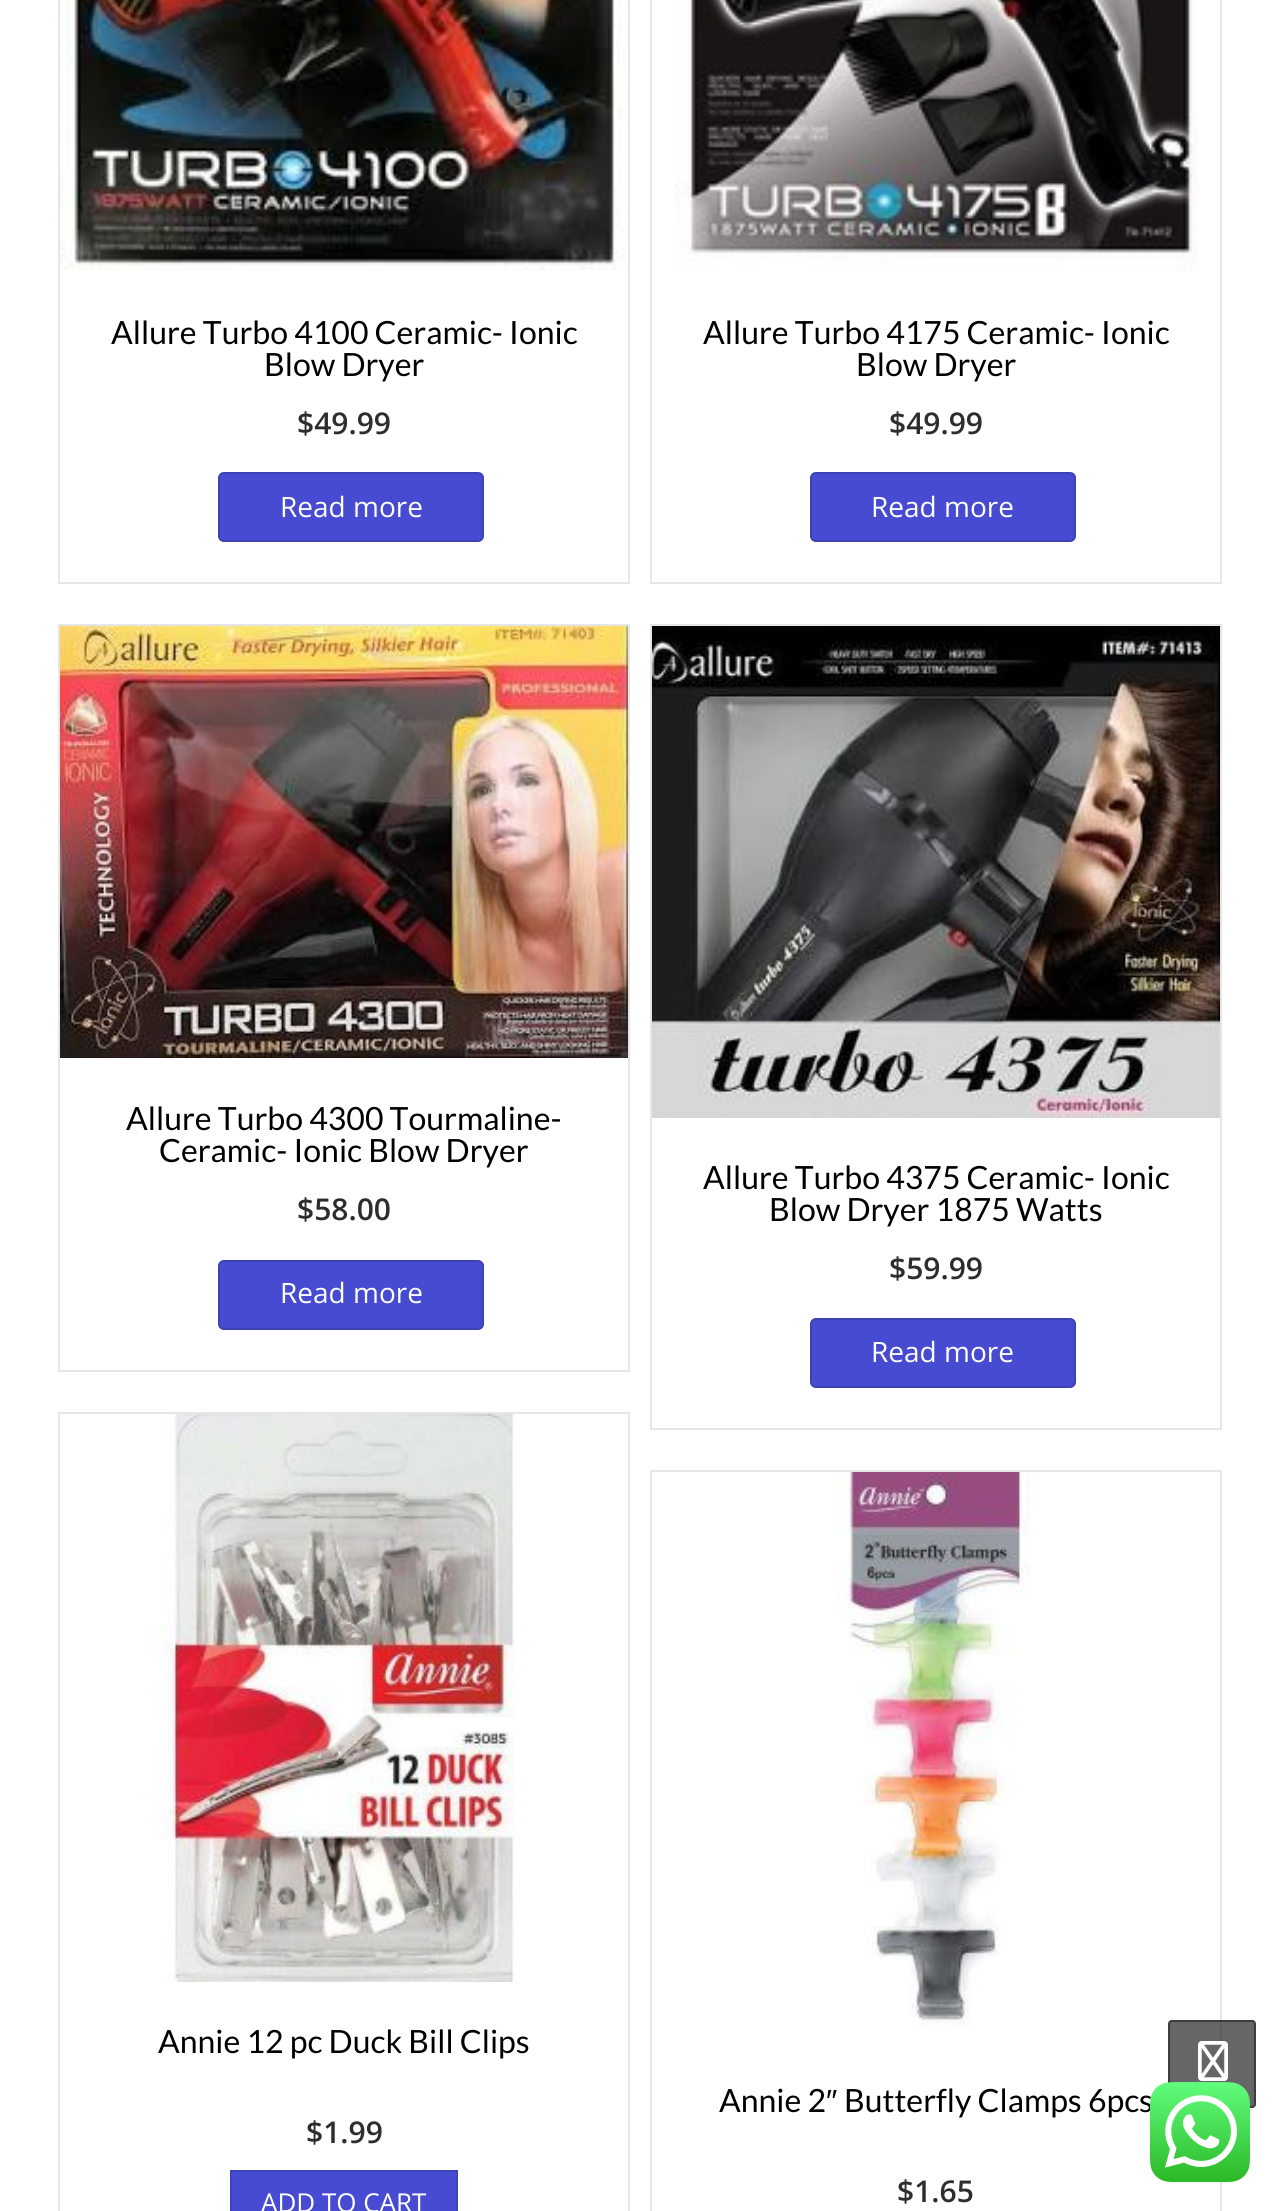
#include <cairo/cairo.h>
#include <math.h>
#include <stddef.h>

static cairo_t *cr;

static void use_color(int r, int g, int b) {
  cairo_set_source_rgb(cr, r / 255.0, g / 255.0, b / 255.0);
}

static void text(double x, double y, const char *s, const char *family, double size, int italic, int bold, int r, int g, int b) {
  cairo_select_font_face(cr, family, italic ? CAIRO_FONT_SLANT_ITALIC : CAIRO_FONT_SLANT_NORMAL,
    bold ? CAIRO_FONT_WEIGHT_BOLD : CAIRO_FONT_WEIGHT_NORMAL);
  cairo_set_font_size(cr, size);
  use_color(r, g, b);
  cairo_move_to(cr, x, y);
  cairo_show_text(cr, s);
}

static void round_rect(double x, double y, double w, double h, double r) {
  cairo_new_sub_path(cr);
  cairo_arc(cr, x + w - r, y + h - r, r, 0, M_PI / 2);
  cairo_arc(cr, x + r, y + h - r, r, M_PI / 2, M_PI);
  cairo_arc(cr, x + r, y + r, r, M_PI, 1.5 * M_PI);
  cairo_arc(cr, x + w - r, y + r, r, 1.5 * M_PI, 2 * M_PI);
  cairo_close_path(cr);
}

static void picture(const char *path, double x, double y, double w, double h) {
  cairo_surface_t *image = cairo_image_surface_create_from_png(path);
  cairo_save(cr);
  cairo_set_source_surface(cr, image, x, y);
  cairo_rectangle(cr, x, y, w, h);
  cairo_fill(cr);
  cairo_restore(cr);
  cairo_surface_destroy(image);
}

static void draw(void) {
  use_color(255, 255, 255);
  cairo_paint(cr);
  cairo_rectangle(cr, 59, -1, 570, 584);
  use_color(230, 230, 230);
  cairo_stroke(cr);
  picture("img_01.png", 60, 0, 566, 271);
  use_color(71, 75, 209);
  round_rect(218, 472, 266, 70, 6);
  cairo_fill(cr);
  round_rect(219, 473, 264, 68, 5);
  cairo_set_source_rgba(cr, 0, 0, 0, 0.14);
  cairo_stroke(cr);
  cairo_rectangle(cr, 651, -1, 570, 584);
  use_color(230, 230, 230);
  cairo_stroke(cr);
  picture("img_02.png", 674, 0, 524, 272);
  use_color(71, 75, 209);
  round_rect(810, 472, 266, 70, 6);
  cairo_fill(cr);
  round_rect(811, 473, 264, 68, 5);
  cairo_set_source_rgba(cr, 0, 0, 0, 0.14);
  cairo_stroke(cr);
  cairo_rectangle(cr, 59, 625, 570, 746);
  use_color(230, 230, 230);
  cairo_stroke(cr);
  picture("img_03.png", 60, 626, 568, 432);
  use_color(71, 75, 209);
  round_rect(218, 1260, 266, 70, 6);
  cairo_fill(cr);
  round_rect(219, 1261, 264, 68, 5);
  cairo_set_source_rgba(cr, 0, 0, 0, 0.14);
  cairo_stroke(cr);
  cairo_rectangle(cr, 651, 625, 570, 804);
  use_color(230, 230, 230);
  cairo_stroke(cr);
  picture("img_04.png", 652, 626, 568, 492);
  use_color(71, 75, 209);
  round_rect(810, 1318, 266, 70, 6);
  cairo_fill(cr);
  round_rect(811, 1319, 264, 68, 5);
  cairo_set_source_rgba(cr, 0, 0, 0, 0.14);
  cairo_stroke(cr);
  cairo_rectangle(cr, 59, 1413, 570, 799);
  use_color(230, 230, 230);
  cairo_stroke(cr);
  picture("img_05.png", 151, 1414, 364, 568);
  use_color(71, 75, 209);
  cairo_rectangle(cr, 231, 2171, 226, 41);
  cairo_fill_preserve(cr);
  use_color(64, 68, 188);
  cairo_stroke(cr);
  cairo_rectangle(cr, 651, 1471, 570, 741);
  use_color(230, 230, 230);
  cairo_stroke(cr);
  picture("img_06.png", 833, 1472, 198, 556);
  cairo_set_source_rgba(cr, 0, 0, 0, 0.6);
  round_rect(1168, 2020, 88, 88, 4);
  cairo_fill(cr);
  round_rect(1169, 2021, 86, 86, 3);
  cairo_set_source_rgba(cr, 0, 0, 0, 0.4);
  cairo_stroke(cr);
  picture("img_07.png", 1198, 2041, 30, 40);
  text(111, 344, "Allure Turbo 4100 Ceramic- Ionic", "Lato", 32, 0, 0, 0, 0, 0);
  text(264, 376, "Blow Dryer", "Lato", 32, 0, 0, 0, 0, 0);
  text(297, 434, "$49.99", "Open Sans SemiBold", 30, 0, 0, 45, 45, 45);
  text(280, 517, "Read more", "Open Sans", 28, 0, 0, 255, 255, 255);
  text(703, 344, "Allure Turbo 4175 Ceramic- Ionic", "Lato", 32, 0, 0, 0, 0, 0);
  text(856, 376, "Blow Dryer", "Lato", 32, 0, 0, 0, 0, 0);
  text(889, 434, "$49.99", "Open Sans SemiBold", 30, 0, 0, 45, 45, 45);
  text(871, 517, "Read more", "Open Sans", 28, 0, 0, 255, 255, 255);
  text(126, 1130, "Allure Turbo 4300 Tourmaline-", "Lato", 32, 0, 0, 0, 0, 0);
  text(159, 1162, "Ceramic- Ionic Blow Dryer", "Lato", 32, 0, 0, 0, 0, 0);
  text(297, 1220, "$58.00", "Open Sans SemiBold", 30, 0, 0, 45, 45, 45);
  text(280, 1303, "Read more", "Open Sans", 28, 0, 0, 255, 255, 255);
  text(703, 1189, "Allure Turbo 4375 Ceramic- Ionic", "Lato", 32, 0, 0, 0, 0, 0);
  text(769, 1221, "Blow Dryer 1875 Watts", "Lato", 32, 0, 0, 0, 0, 0);
  text(889, 1279, "$59.99", "Open Sans SemiBold", 30, 0, 0, 45, 45, 45);
  text(871, 1362, "Read more", "Open Sans", 28, 0, 0, 255, 255, 255);
  text(158, 2053, "Annie 12 pc Duck Bill Clips", "Lato", 32, 0, 0, 0, 0, 0);
  text(306, 2143, "$1.99", "Open Sans SemiBold", 30, 0, 0, 45, 45, 45);
  text(261, 2212, "ADD TO CART", "Open Sans", 26, 0, 0, 255, 255, 255);
  text(719, 2112, "Annie 2", "Lato", 32, 0, 0, 0, 0, 0);
  text(826, 2112, "″", "Liberation Sans", 32, 0, 0, 0, 0, 0);
  text(844, 2112, "Butterfly Clamps 6pcs", "Lato", 32, 0, 0, 0, 0, 0);
  text(897, 2202, "$1.65", "Open Sans SemiBold", 30, 0, 0, 45, 45, 45);
  picture("img_08.png", 1150, 2082, 100, 100);
}

int main(void) {
  cairo_surface_t *surface = cairo_image_surface_create(CAIRO_FORMAT_RGB24, 1280, 2211);
  cr = cairo_create(surface);
  cairo_font_options_t *options = cairo_font_options_create();
  cairo_font_options_set_hint_metrics(options, CAIRO_HINT_METRICS_OFF);
  cairo_font_options_set_hint_style(options, CAIRO_HINT_STYLE_NONE);
  cairo_set_font_options(cr, options);
  cairo_set_miter_limit(cr, 4);
  draw();
  cairo_surface_write_to_png(surface, "out.png");
  cairo_font_options_destroy(options);
  cairo_destroy(cr);
  cairo_surface_destroy(surface);
  return 0;
}
